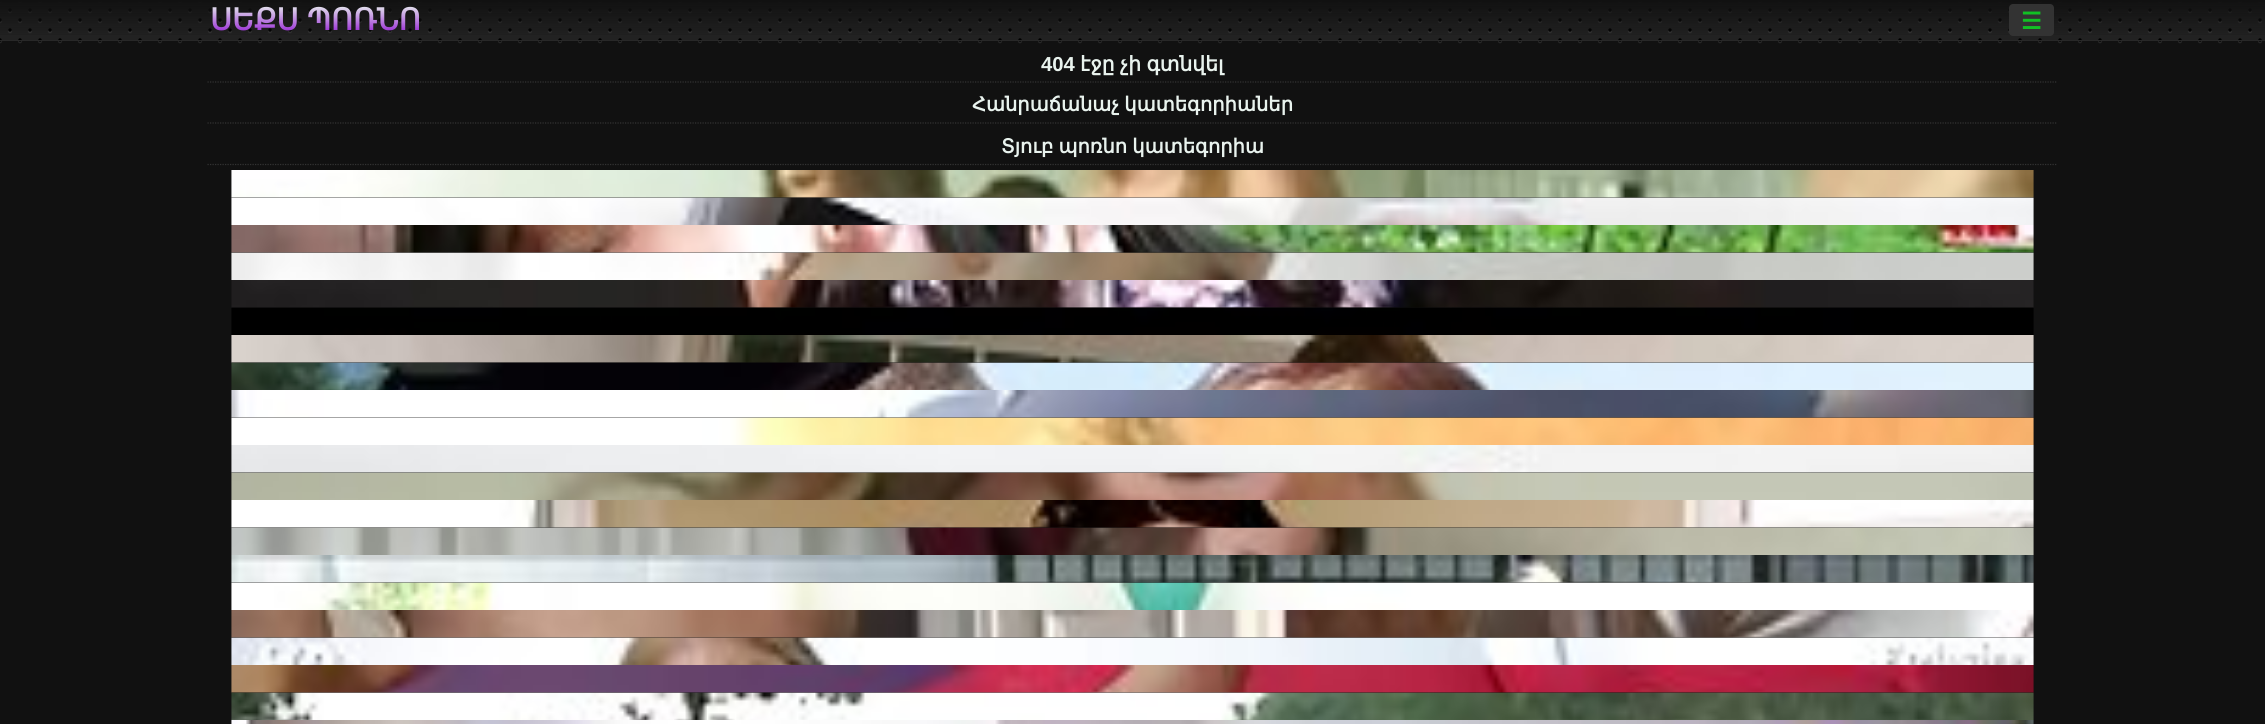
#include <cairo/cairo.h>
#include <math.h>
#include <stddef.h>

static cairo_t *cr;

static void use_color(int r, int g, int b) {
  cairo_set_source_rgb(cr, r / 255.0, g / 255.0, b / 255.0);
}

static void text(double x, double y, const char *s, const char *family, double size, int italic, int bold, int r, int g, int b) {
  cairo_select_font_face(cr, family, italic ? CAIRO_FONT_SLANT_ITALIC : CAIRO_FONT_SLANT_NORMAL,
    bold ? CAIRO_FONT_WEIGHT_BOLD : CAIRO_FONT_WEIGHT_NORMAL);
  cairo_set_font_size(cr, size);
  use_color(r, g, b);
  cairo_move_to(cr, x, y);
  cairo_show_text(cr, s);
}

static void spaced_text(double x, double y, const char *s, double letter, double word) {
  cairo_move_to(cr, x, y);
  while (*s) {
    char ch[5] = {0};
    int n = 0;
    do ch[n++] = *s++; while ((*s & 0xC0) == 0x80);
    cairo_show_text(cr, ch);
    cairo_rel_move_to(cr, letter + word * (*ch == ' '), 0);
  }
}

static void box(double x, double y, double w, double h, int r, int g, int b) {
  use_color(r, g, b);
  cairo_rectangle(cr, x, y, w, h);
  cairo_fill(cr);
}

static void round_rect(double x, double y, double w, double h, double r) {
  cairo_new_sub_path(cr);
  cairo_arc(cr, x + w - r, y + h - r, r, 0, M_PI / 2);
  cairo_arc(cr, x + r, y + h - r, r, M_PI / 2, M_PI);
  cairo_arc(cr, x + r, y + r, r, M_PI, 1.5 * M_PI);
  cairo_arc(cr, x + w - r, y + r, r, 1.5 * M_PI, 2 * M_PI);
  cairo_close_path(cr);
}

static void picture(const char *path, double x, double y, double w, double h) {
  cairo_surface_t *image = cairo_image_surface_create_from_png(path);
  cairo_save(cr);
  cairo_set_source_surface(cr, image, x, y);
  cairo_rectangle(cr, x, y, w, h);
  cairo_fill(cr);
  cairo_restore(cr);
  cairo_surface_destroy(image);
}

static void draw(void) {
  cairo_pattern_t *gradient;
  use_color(17, 17, 17);
  cairo_paint(cr);
  box(0, 0, 2265, 40, 34, 34, 34);
  cairo_new_path(cr);
  cairo_move_to(cr, 0, 1.2);
  cairo_line_to(cr, 2260.2, 1.2);
  use_color(56, 56, 56);
  cairo_set_line_width(cr, 4.2);
  cairo_set_line_cap(cr, CAIRO_LINE_CAP_ROUND);
  cairo_set_dash(cr, (double[]){0, 20}, 2, 0);
  cairo_stroke(cr);
  cairo_new_path(cr);
  cairo_move_to(cr, 0, 21.2);
  cairo_line_to(cr, 2260.2, 21.2);
  cairo_stroke(cr);
  cairo_new_path(cr);
  cairo_move_to(cr, 0, 41.2);
  cairo_line_to(cr, 2260.2, 41.2);
  cairo_set_source_rgba(cr, 1, 1, 1, 0.1);
  cairo_stroke(cr);
  cairo_new_path(cr);
  cairo_move_to(cr, 10, 11.2);
  cairo_line_to(cr, 2250.2, 11.2);
  use_color(56, 56, 56);
  cairo_stroke(cr);
  cairo_new_path(cr);
  cairo_move_to(cr, 10, 31.2);
  cairo_line_to(cr, 2250.2, 31.2);
  cairo_stroke(cr);
  cairo_new_path(cr);
  cairo_move_to(cr, 0, 0);
  cairo_line_to(cr, 2260.2, 0);
  use_color(0, 0, 0);
  cairo_set_line_width(cr, 3.5);
  cairo_stroke(cr);
  cairo_new_path(cr);
  cairo_move_to(cr, 0, 20);
  cairo_line_to(cr, 2260.2, 20);
  cairo_stroke(cr);
  cairo_new_path(cr);
  cairo_move_to(cr, 0, 40);
  cairo_line_to(cr, 2260.2, 40);
  cairo_stroke(cr);
  cairo_new_path(cr);
  cairo_move_to(cr, 10, 10);
  cairo_line_to(cr, 2250.2, 10);
  cairo_stroke(cr);
  cairo_new_path(cr);
  cairo_move_to(cr, 10, 30);
  cairo_line_to(cr, 2250.2, 30);
  cairo_stroke(cr);
  box(0, 40, 2265, 1, 40, 40, 40);
  gradient = cairo_pattern_create_linear(1133, 0, 1133, 40);
  cairo_pattern_add_color_stop_rgba(gradient, 0, 0.067, 0.067, 0.067, 1);
  cairo_pattern_add_color_stop_rgba(gradient, 1, 0.067, 0.067, 0.067, 0);
  cairo_set_source(cr, gradient);
  cairo_pattern_destroy(gradient);
  cairo_rectangle(cr, 0, 0, 2265, 35);
  cairo_fill(cr);
  use_color(51, 51, 51);
  round_rect(2009, 4, 45, 32, 4);
  cairo_fill(cr);
  cairo_new_path(cr);
  cairo_move_to(cr, 207.5, 82);
  cairo_line_to(cr, 2057.5, 82);
  cairo_set_line_width(cr, 1.2);
  cairo_set_line_cap(cr, CAIRO_LINE_CAP_BUTT);
  cairo_set_dash(cr, (double[]){1.25, 1.25}, 2, 0);
  cairo_stroke(cr);
  cairo_new_path(cr);
  cairo_move_to(cr, 207.5, 123);
  cairo_line_to(cr, 2057.5, 123);
  cairo_stroke(cr);
  cairo_new_path(cr);
  cairo_move_to(cr, 207.5, 164.5);
  cairo_line_to(cr, 2057.5, 164.5);
  cairo_stroke(cr);
  picture("img_01.png", 231, 170, 1803, 28);
  picture("img_02.png", 231, 197, 1803, 28);
  picture("img_03.png", 231, 225, 1803, 28);
  picture("img_04.png", 231, 252, 1803, 28);
  picture("img_05.png", 231, 280, 1803, 28);
  picture("img_06.png", 231, 307, 1803, 28);
  picture("img_07.png", 231, 335, 1803, 28);
  picture("img_08.png", 231, 362, 1803, 28);
  picture("img_09.png", 231, 390, 1803, 28);
  picture("img_10.png", 231, 417, 1803, 28);
  picture("img_11.png", 231, 445, 1803, 28);
  picture("img_12.png", 231, 472, 1803, 28);
  picture("img_13.png", 231, 500, 1803, 28);
  picture("img_14.png", 231, 527, 1803, 28);
  picture("img_15.png", 231, 555, 1803, 28);
  picture("img_16.png", 231, 582, 1803, 28);
  picture("img_17.png", 231, 610, 1803, 28);
  picture("img_18.png", 231, 637, 1803, 28);
  picture("img_19.png", 231, 665, 1803, 28);
  picture("img_20.png", 231, 692, 1803, 28);
  picture("img_21.png", 231, 720, 1803, 4);
  cairo_select_font_face(cr, "DejaVu Sans", CAIRO_FONT_SLANT_NORMAL, CAIRO_FONT_WEIGHT_BOLD);
  cairo_set_font_size(cr, 30);
  gradient = cairo_pattern_create_linear(315, 3.7, 315, 36);
  cairo_pattern_add_color_stop_rgba(gradient, 0, 0.914, 0.953, 0.933, 1);
  cairo_pattern_add_color_stop_rgba(gradient, 1, 0.565, 0.078, 0.827, 1);
  cairo_set_source(cr, gradient);
  cairo_pattern_destroy(gradient);
  spaced_text(210, 30, "ՍԵՔՍ ՊՈՌՆՈ", 0, -1);
  text(2021, 29, "☰", "DejaVu Sans", 23, 0, 1, 17, 192, 36);
  text(1041, 71, "404", "Liberation Sans", 20.25, 0, 1, 233, 243, 238);
  cairo_select_font_face(cr, "DejaVu Sans", CAIRO_FONT_SLANT_NORMAL, CAIRO_FONT_WEIGHT_BOLD);
  spaced_text(1080, 71, "էջը չի գտնվել", 0, -1);
  cairo_set_font_size(cr, 19.5);
  spaced_text(972, 111, "Հանրաճանաչ կատեգորիաներ", 0, -1);
  spaced_text(1001, 153, "Տյուբ պոռնո կատեգորիա", 0, -1);
}

int main(void) {
  cairo_surface_t *surface = cairo_image_surface_create(CAIRO_FORMAT_RGB24, 2265, 724);
  cr = cairo_create(surface);
  cairo_font_options_t *options = cairo_font_options_create();
  cairo_font_options_set_hint_metrics(options, CAIRO_HINT_METRICS_OFF);
  cairo_font_options_set_hint_style(options, CAIRO_HINT_STYLE_NONE);
  cairo_set_font_options(cr, options);
  cairo_set_miter_limit(cr, 4);
  draw();
  cairo_surface_write_to_png(surface, "out.png");
  cairo_font_options_destroy(options);
  cairo_destroy(cr);
  cairo_surface_destroy(surface);
  return 0;
}
